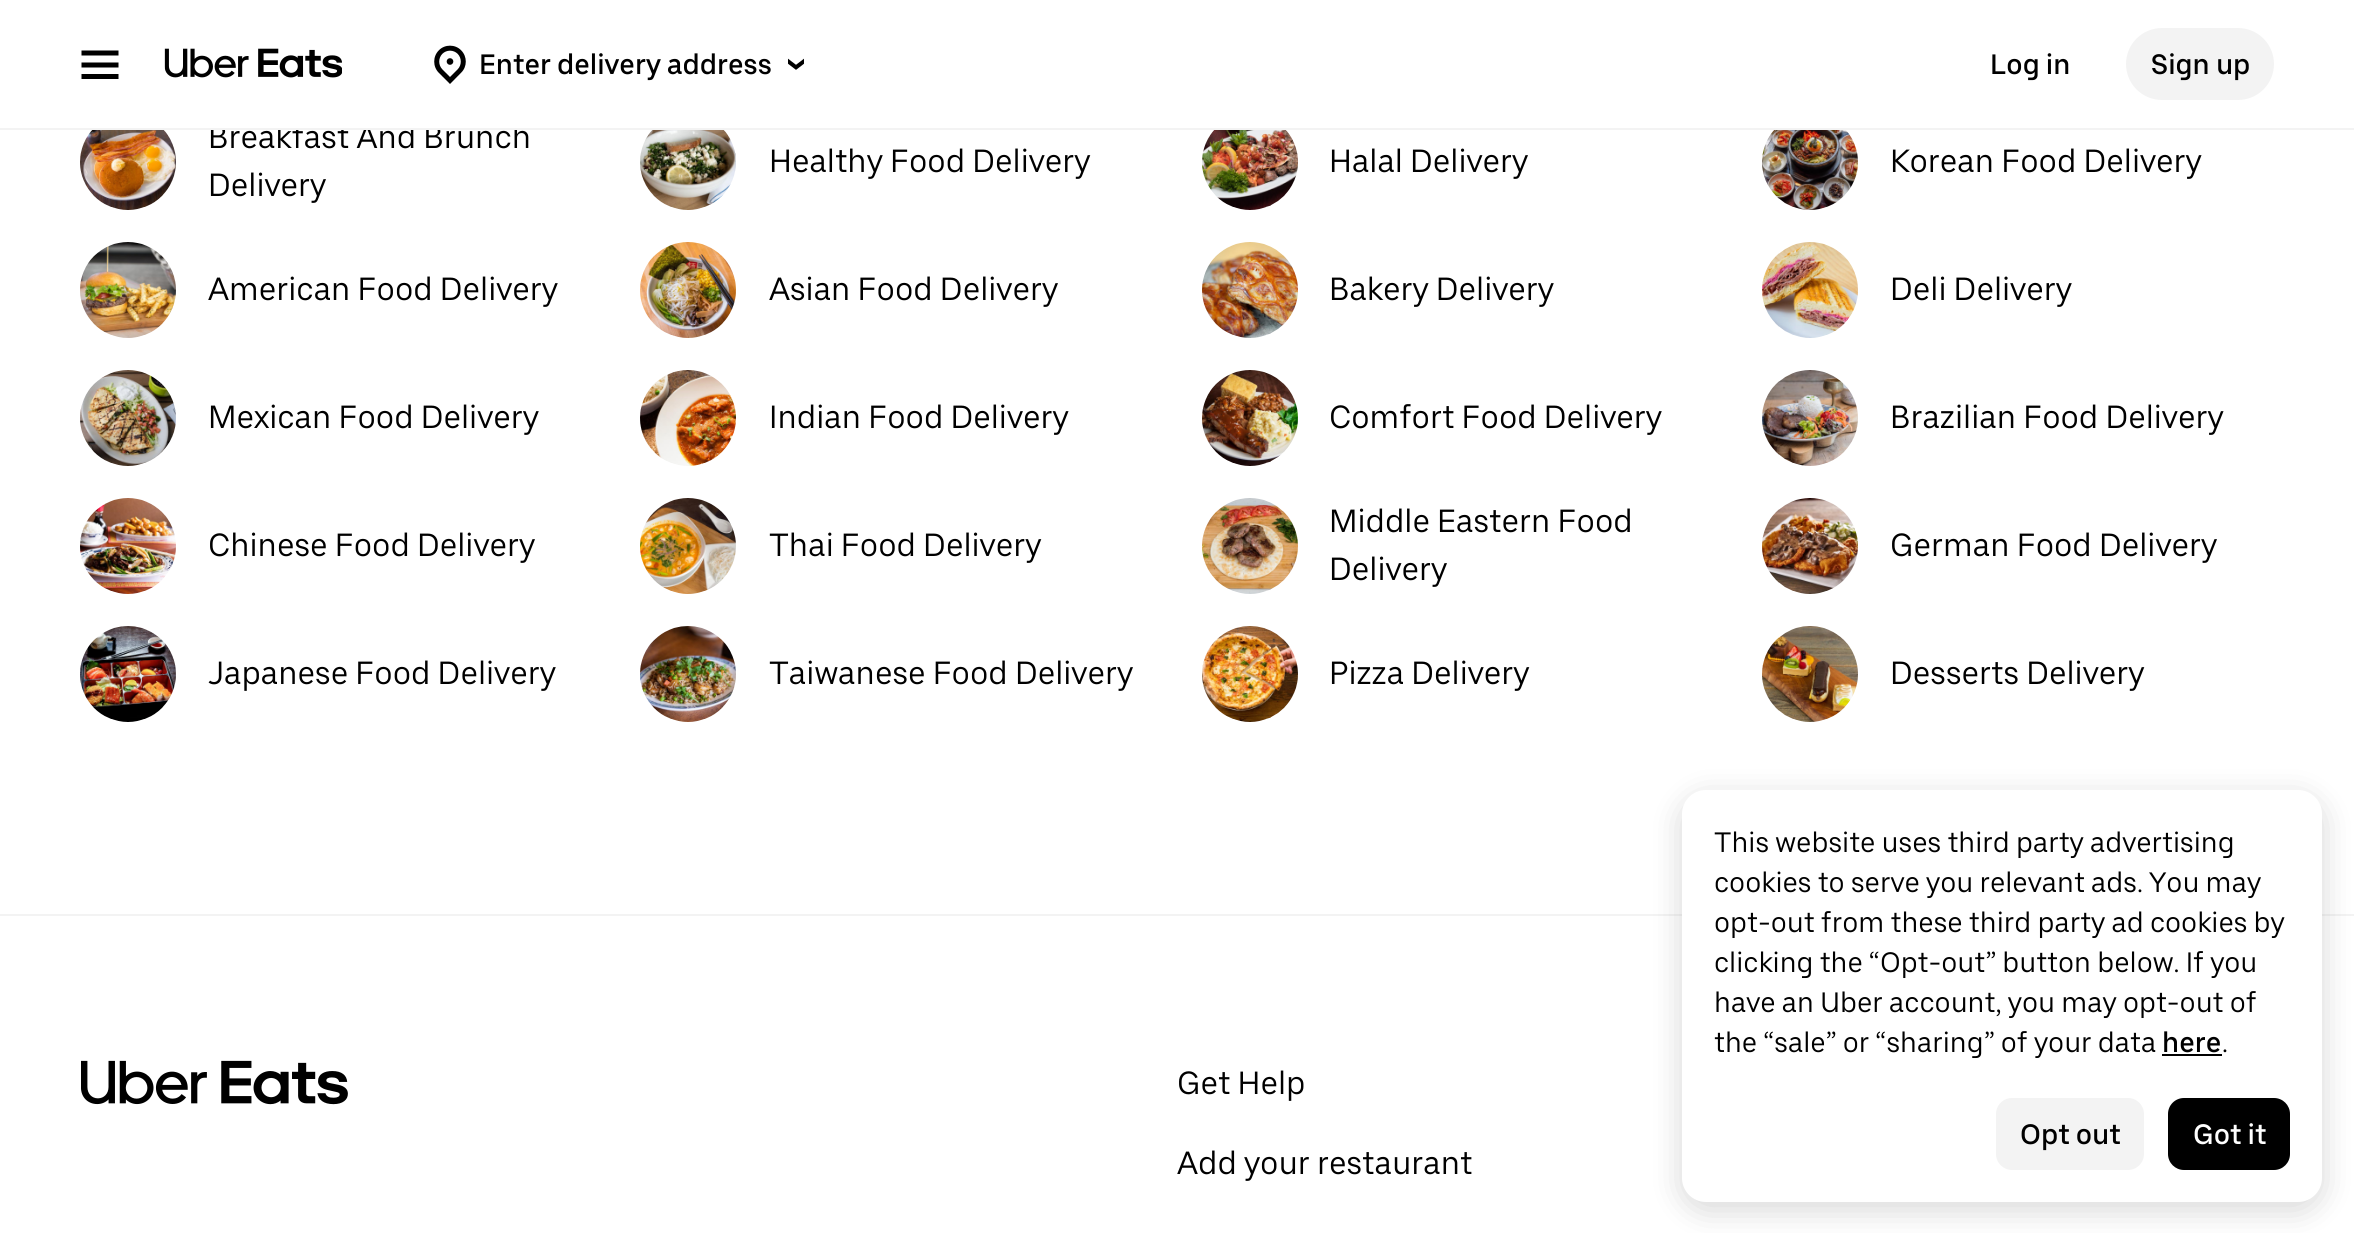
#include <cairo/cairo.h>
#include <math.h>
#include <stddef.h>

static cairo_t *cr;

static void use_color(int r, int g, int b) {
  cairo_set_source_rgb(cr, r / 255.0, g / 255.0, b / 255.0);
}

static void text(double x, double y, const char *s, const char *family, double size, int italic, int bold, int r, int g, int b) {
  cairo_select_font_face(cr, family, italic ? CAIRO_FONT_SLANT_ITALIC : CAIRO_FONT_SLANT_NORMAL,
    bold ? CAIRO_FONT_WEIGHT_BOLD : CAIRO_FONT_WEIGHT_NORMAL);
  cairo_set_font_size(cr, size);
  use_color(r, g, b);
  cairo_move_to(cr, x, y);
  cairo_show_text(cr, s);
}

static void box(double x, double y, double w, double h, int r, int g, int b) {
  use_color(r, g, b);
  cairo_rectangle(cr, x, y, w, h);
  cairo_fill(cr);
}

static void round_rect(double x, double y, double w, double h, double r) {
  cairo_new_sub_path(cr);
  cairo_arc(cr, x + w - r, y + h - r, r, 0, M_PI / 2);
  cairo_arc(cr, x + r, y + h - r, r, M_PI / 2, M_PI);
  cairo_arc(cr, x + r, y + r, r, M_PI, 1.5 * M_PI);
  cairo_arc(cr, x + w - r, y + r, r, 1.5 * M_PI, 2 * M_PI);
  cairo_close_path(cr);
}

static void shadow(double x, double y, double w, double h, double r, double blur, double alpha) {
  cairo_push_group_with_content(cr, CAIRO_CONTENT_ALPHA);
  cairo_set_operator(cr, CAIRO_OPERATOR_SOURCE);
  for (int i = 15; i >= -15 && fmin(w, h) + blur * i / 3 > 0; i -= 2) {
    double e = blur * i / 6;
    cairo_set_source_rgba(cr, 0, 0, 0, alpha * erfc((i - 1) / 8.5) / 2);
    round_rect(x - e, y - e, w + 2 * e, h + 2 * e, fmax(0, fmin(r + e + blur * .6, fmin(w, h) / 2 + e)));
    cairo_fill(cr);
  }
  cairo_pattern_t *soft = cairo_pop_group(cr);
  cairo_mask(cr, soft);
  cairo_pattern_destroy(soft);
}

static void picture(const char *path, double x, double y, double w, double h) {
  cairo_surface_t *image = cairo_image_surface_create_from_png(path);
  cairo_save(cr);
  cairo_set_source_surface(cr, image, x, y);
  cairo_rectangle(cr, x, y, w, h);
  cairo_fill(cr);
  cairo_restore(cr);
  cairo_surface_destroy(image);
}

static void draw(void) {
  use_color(255, 255, 255);
  cairo_paint(cr);
  use_color(0, 0, 0);
  cairo_set_fill_rule(cr, CAIRO_FILL_RULE_EVEN_ODD);
  cairo_new_path(cr);
  cairo_move_to(cr, 118.5, 50.5);
  cairo_line_to(cr, 81.5, 50.5);
  cairo_line_to(cr, 81.5, 55.5);
  cairo_line_to(cr, 118.5, 55.5);
  cairo_close_path(cr);
  cairo_move_to(cr, 118.5, 62.5);
  cairo_line_to(cr, 81.5, 62.5);
  cairo_line_to(cr, 81.5, 67.5);
  cairo_line_to(cr, 118.5, 67.5);
  cairo_close_path(cr);
  cairo_move_to(cr, 81.5, 74);
  cairo_line_to(cr, 118.5, 74);
  cairo_line_to(cr, 118.5, 79);
  cairo_line_to(cr, 81.5, 79);
  cairo_close_path(cr);
  cairo_fill(cr);
  picture("img_01.png", 164, 48, 178, 30);
  picture("img_02.png", 434, 45, 32, 39);
  picture("img_03.png", 788, 58, 16, 12);
  use_color(243, 243, 243);
  round_rect(2126, 28, 148, 72, 36);
  cairo_fill(cr);
  picture("img_04.png", 80, 130, 96, 80);
  picture("img_05.png", 640, 130, 96, 80);
  picture("img_06.png", 1202, 130, 96, 80);
  picture("img_07.png", 1762, 130, 96, 80);
  picture("img_08.png", 80, 242, 96, 96);
  picture("img_09.png", 640, 242, 96, 96);
  picture("img_10.png", 1202, 242, 96, 96);
  picture("img_11.png", 1762, 242, 96, 96);
  picture("img_12.png", 80, 370, 96, 96);
  picture("img_13.png", 640, 370, 96, 96);
  picture("img_14.png", 1202, 370, 96, 96);
  picture("img_15.png", 1762, 370, 96, 96);
  picture("img_16.png", 80, 498, 96, 96);
  picture("img_17.png", 640, 498, 96, 96);
  picture("img_18.png", 1202, 498, 96, 96);
  picture("img_19.png", 1762, 498, 96, 96);
  picture("img_20.png", 80, 626, 96, 96);
  picture("img_21.png", 640, 626, 96, 96);
  picture("img_22.png", 1202, 626, 96, 96);
  picture("img_23.png", 1762, 626, 96, 96);
  box(0, 914, 2354, 2, 243, 243, 243);
  picture("img_24.png", 81, 1060, 267, 45);
  use_color(0, 0, 0);
  shadow(1682, 798, 640, 412, 24, 16, 0.16);
  use_color(255, 255, 255);
  round_rect(1682, 790, 640, 412, 24);
  cairo_fill(cr);
  box(2162, 1054, 60, 2, 0, 0, 0);
  use_color(243, 243, 243);
  round_rect(1996, 1098, 148, 72, 16);
  cairo_fill(cr);
  use_color(0, 0, 0);
  round_rect(2168, 1098, 122, 72, 16);
  cairo_fill(cr);
  text(479, 74, "Enter delivery address", "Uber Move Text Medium", 28, 0, 0, 0, 0, 0);
  text(1990, 74, "Log in", "Uber Move Text Medium", 28, 0, 0, 0, 0, 0);
  text(2151, 74, "Sign up", "Uber Move Text Medium", 28, 0, 0, 0, 0, 0);
  text(208, 148, "Breakfast And Brunch", "Uber Move Text", 32, 0, 0, 0, 0, 0);
  box(0, 128, 2354, 2, 243, 243, 243);
  box(210, 124, 308, 4, 255, 255, 255);
  text(208, 196, "Delivery", "Uber Move Text", 32, 0, 0, 0, 0, 0);
  text(769, 172, "Healthy Food Delivery", "Uber Move Text", 32, 0, 0, 0, 0, 0);
  text(1329, 172, "Halal Delivery", "Uber Move Text", 32, 0, 0, 0, 0, 0);
  text(1890, 172, "Korean Food Delivery", "Uber Move Text", 32, 0, 0, 0, 0, 0);
  text(208, 300, "American Food Delivery", "Uber Move Text", 32, 0, 0, 0, 0, 0);
  text(769, 300, "Asian Food Delivery", "Uber Move Text", 32, 0, 0, 0, 0, 0);
  text(1329, 300, "Bakery Delivery", "Uber Move Text", 32, 0, 0, 0, 0, 0);
  text(1890, 300, "Deli Delivery", "Uber Move Text", 32, 0, 0, 0, 0, 0);
  text(208, 428, "Mexican Food Delivery", "Uber Move Text", 32, 0, 0, 0, 0, 0);
  text(769, 428, "Indian Food Delivery", "Uber Move Text", 32, 0, 0, 0, 0, 0);
  text(1329, 428, "Comfort Food Delivery", "Uber Move Text", 32, 0, 0, 0, 0, 0);
  text(1890, 428, "Brazilian Food Delivery", "Uber Move Text", 32, 0, 0, 0, 0, 0);
  text(208, 556, "Chinese Food Delivery", "Uber Move Text", 32, 0, 0, 0, 0, 0);
  text(769, 556, "Thai Food Delivery", "Uber Move Text", 32, 0, 0, 0, 0, 0);
  text(1329, 532, "Middle Eastern Food", "Uber Move Text", 32, 0, 0, 0, 0, 0);
  text(1329, 580, "Delivery", "Uber Move Text", 32, 0, 0, 0, 0, 0);
  text(1890, 556, "German Food Delivery", "Uber Move Text", 32, 0, 0, 0, 0, 0);
  text(208, 684, "Japanese Food Delivery", "Uber Move Text", 32, 0, 0, 0, 0, 0);
  text(769, 684, "Taiwanese Food Delivery", "Uber Move Text", 32, 0, 0, 0, 0, 0);
  text(1329, 684, "Pizza Delivery", "Uber Move Text", 32, 0, 0, 0, 0, 0);
  text(1890, 684, "Desserts Delivery", "Uber Move Text", 32, 0, 0, 0, 0, 0);
  text(1177, 1094, "Get Help", "Uber Move Text", 32, 0, 0, 0, 0, 0);
  text(1177, 1174, "Add your restaurant", "Uber Move Text", 32, 0, 0, 0, 0, 0);
  text(1714, 852, "This website uses third party advertising", "Uber Move Text", 28, 0, 0, 0, 0, 0);
  text(1714, 892, "cookies to serve you relevant ads. You may", "Uber Move Text", 28, 0, 0, 0, 0, 0);
  text(1714, 932, "opt-out from these third party ad cookies by", "Uber Move Text", 28, 0, 0, 0, 0, 0);
  text(1714, 972, "clicking the “Opt-out” button below. If you", "Uber Move Text", 28, 0, 0, 0, 0, 0);
  text(1714, 1012, "have an Uber account, you may opt-out of", "Uber Move Text", 28, 0, 0, 0, 0, 0);
  text(1714, 1052, "the “sale” or “sharing” of your data", "Uber Move Text", 28, 0, 0, 0, 0, 0);
  text(2162, 1052, "here", "Uber Move Text Medium", 28, 0, 0, 0, 0, 0);
  text(2222, 1052, ".", "Uber Move Text", 28, 0, 0, 0, 0, 0);
  text(2020, 1144, "Opt out", "Uber Move Text Medium", 28, 0, 0, 0, 0, 0);
  text(2193, 1144, "Got it", "Uber Move Text Medium", 28, 0, 0, 255, 255, 255);
}

int main(void) {
  cairo_surface_t *surface = cairo_image_surface_create(CAIRO_FORMAT_RGB24, 2354, 1233);
  cr = cairo_create(surface);
  cairo_font_options_t *options = cairo_font_options_create();
  cairo_font_options_set_hint_metrics(options, CAIRO_HINT_METRICS_OFF);
  cairo_font_options_set_hint_style(options, CAIRO_HINT_STYLE_NONE);
  cairo_set_font_options(cr, options);
  cairo_set_miter_limit(cr, 4);
  draw();
  cairo_surface_write_to_png(surface, "out.png");
  cairo_font_options_destroy(options);
  cairo_destroy(cr);
  cairo_surface_destroy(surface);
  return 0;
}
